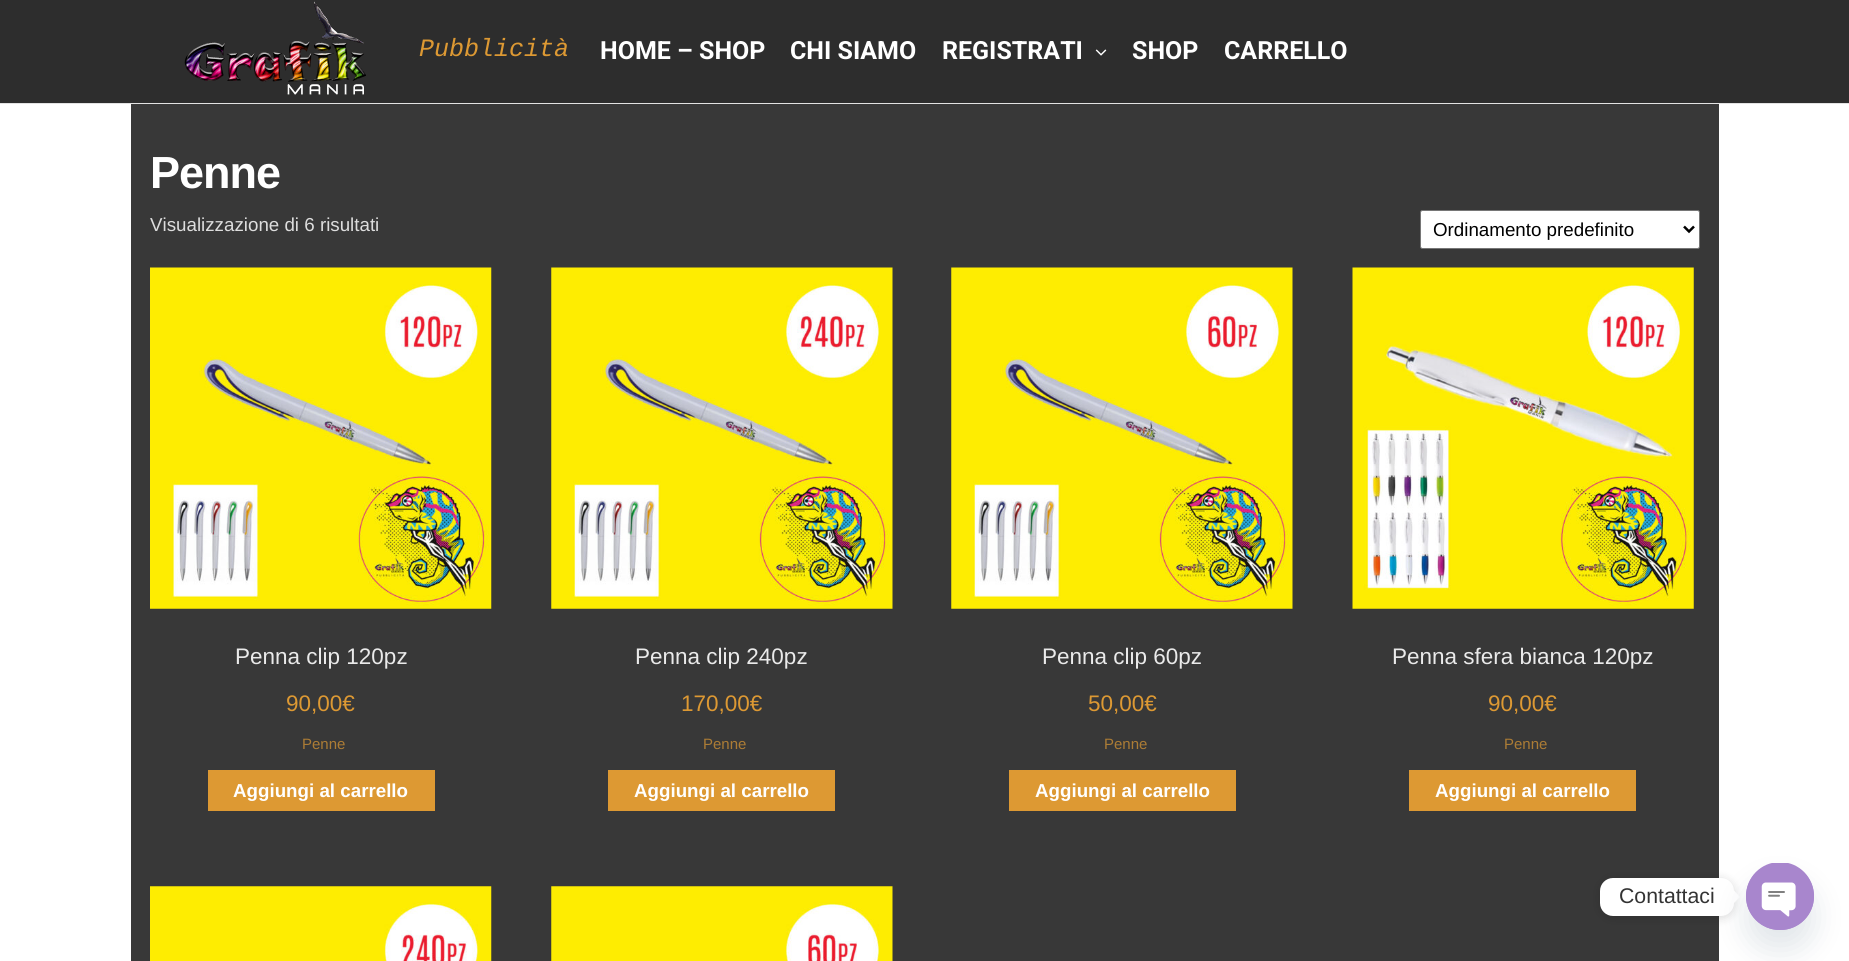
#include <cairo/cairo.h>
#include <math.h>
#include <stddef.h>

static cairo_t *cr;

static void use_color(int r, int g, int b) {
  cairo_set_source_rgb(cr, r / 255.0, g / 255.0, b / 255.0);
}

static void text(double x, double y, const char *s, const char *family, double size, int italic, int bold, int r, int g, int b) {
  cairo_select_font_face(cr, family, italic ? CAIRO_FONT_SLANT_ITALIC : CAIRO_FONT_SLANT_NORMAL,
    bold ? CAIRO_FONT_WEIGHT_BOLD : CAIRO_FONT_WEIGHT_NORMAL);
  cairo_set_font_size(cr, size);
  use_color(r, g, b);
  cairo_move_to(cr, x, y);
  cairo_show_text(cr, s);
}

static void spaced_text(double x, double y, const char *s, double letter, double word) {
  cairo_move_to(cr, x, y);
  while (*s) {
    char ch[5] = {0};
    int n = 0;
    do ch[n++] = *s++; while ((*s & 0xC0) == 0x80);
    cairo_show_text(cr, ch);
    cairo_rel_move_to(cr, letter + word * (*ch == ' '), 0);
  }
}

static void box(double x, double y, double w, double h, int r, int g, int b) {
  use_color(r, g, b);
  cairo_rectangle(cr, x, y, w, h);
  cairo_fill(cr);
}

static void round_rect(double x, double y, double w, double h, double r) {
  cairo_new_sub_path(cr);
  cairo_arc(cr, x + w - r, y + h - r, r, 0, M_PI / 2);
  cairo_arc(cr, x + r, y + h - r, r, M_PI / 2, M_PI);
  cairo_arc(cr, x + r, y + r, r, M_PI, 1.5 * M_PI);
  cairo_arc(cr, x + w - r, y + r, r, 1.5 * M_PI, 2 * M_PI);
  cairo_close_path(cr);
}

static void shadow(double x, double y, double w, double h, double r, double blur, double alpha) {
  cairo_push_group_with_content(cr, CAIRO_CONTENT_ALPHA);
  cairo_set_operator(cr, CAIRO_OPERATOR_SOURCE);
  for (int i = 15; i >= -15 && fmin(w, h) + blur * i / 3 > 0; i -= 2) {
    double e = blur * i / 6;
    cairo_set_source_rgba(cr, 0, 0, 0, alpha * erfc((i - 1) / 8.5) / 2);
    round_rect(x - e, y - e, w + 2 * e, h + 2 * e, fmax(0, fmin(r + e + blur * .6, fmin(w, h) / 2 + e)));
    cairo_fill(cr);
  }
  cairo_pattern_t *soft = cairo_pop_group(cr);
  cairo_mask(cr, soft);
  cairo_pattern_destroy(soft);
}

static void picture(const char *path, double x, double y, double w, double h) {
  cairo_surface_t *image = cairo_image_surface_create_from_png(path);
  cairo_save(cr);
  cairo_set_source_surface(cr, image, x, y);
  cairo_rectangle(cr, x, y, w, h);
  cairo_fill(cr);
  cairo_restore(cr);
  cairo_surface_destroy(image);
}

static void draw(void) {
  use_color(255, 255, 255);
  cairo_paint(cr);
  box(0, 0, 1849, 103, 45, 45, 45);
  box(0, 103, 1849, 1, 226, 226, 226);
  picture("img_01.png", 184, 1, 182, 94);
  picture("img_02.png", 1095, 49, 12, 7);
  box(131, 104, 1588, 857, 56, 56, 56);
  use_color(255, 255, 255);
  round_rect(1420.5, 210.5, 279, 38, 2);
  cairo_fill_preserve(cr);
  use_color(118, 118, 118);
  cairo_set_line_width(cr, 1);
  cairo_stroke(cr);
  cairo_new_path(cr);
  cairo_move_to(cr, 1684, 226.5);
  cairo_line_to(cr, 1689, 231.5);
  cairo_line_to(cr, 1694, 226.5);
  use_color(0, 0, 0);
  cairo_set_line_width(cr, 2.5);
  cairo_stroke(cr);
  picture("img_03.png", 150, 267, 342, 342);
  box(208, 770, 227, 41, 221, 153, 51);
  picture("img_04.png", 551, 267, 342, 342);
  box(608, 770, 227, 41, 221, 153, 51);
  picture("img_05.png", 951, 267, 342, 342);
  box(1009, 770, 227, 41, 221, 153, 51);
  picture("img_06.png", 1352, 267, 342, 342);
  box(1409, 770, 227, 41, 221, 153, 51);
  picture("img_07.png", 150, 886, 342, 75);
  picture("img_08.png", 551, 886, 342, 75);
  use_color(0, 0, 0);
  shadow(1600, 879, 134, 39, 13, 5, 0.15);
  use_color(255, 255, 255);
  round_rect(1600, 878, 134, 38, 13);
  cairo_fill(cr);
  cairo_new_path(cr);
  cairo_move_to(cr, 1734, 903);
  cairo_line_to(cr, 1734, 890.5);
  cairo_line_to(cr, 1740, 897);
  cairo_close_path(cr);
  cairo_fill(cr);
  use_color(73, 104, 126);
  shadow(1746, 883, 68, 67, 33.5, 15, 0.16);
  use_color(168, 134, 205);
  round_rect(1746, 863, 68, 67, 33.5);
  cairo_fill(cr);
  picture("img_09.png", 1746, 863, 68, 67);
  text(419, 56, "Pubblicità", "Liberation Mono", 25, 1, 0, 221, 153, 51);
  text(600, 59, "HOME – SHOP", "Roboto", 25, 0, 1, 255, 255, 255);
  text(790, 59, "CHI SIAMO", "Roboto", 25, 0, 1, 255, 255, 255);
  text(942, 59, "REGISTRATI", "Roboto", 25, 0, 1, 255, 255, 255);
  text(1132, 59, "SHOP", "Roboto", 25, 0, 1, 255, 255, 255);
  text(1224, 59, "CARRELLO", "Roboto", 25, 0, 1, 255, 255, 255);
  cairo_select_font_face(cr, "Liberation Sans", CAIRO_FONT_SLANT_NORMAL, CAIRO_FONT_WEIGHT_BOLD);
  cairo_set_font_size(cr, 45);
  spaced_text(150, 188, "Penne", -1, 0);
  text(150, 231, "Visualizzazione di 6 risultati", "Liberation Sans", 18.75, 0, 0, 221, 221, 221);
  text(1433, 236, "Ordinamento predefinito", "Liberation Sans", 18.75, 0, 0, 0, 0, 0);
  text(235, 664, "Penna clip 120pz", "Liberation Sans", 22.5, 0, 0, 234, 234, 234);
  text(286, 711, "90,00€", "Liberation Sans", 22.5, 0, 0, 221, 153, 51);
  text(302, 749, "Penne", "Liberation Sans", 15, 0, 0, 172, 124, 53);
  text(233, 797, "Aggiungi al carrello", "Liberation Sans", 18.75, 0, 1, 255, 255, 255);
  text(635, 664, "Penna clip 240pz", "Liberation Sans", 22.5, 0, 0, 234, 234, 234);
  text(681, 711, "170,00€", "Liberation Sans", 22.5, 0, 0, 221, 153, 51);
  text(703, 749, "Penne", "Liberation Sans", 15, 0, 0, 172, 124, 53);
  text(634, 797, "Aggiungi al carrello", "Liberation Sans", 18.75, 0, 1, 255, 255, 255);
  text(1042, 664, "Penna clip 60pz", "Liberation Sans", 22.5, 0, 0, 234, 234, 234);
  text(1088, 711, "50,00€", "Liberation Sans", 22.5, 0, 0, 221, 153, 51);
  text(1104, 749, "Penne", "Liberation Sans", 15, 0, 0, 172, 124, 53);
  text(1035, 797, "Aggiungi al carrello", "Liberation Sans", 18.75, 0, 1, 255, 255, 255);
  text(1392, 664, "Penna sfera bianca 120pz", "Liberation Sans", 22.5, 0, 0, 234, 234, 234);
  text(1488, 711, "90,00€", "Liberation Sans", 22.5, 0, 0, 221, 153, 51);
  text(1504, 749, "Penne", "Liberation Sans", 15, 0, 0, 172, 124, 53);
  text(1435, 797, "Aggiungi al carrello", "Liberation Sans", 18.75, 0, 1, 255, 255, 255);
  text(1619, 903, "Contattaci", "Liberation Sans", 21.25, 0, 0, 51, 51, 51);
}

int main(void) {
  cairo_surface_t *surface = cairo_image_surface_create(CAIRO_FORMAT_RGB24, 1849, 961);
  cr = cairo_create(surface);
  cairo_font_options_t *options = cairo_font_options_create();
  cairo_font_options_set_hint_metrics(options, CAIRO_HINT_METRICS_OFF);
  cairo_font_options_set_hint_style(options, CAIRO_HINT_STYLE_NONE);
  cairo_set_font_options(cr, options);
  cairo_set_miter_limit(cr, 4);
  draw();
  cairo_surface_write_to_png(surface, "out.png");
  cairo_font_options_destroy(options);
  cairo_destroy(cr);
  cairo_surface_destroy(surface);
  return 0;
}
